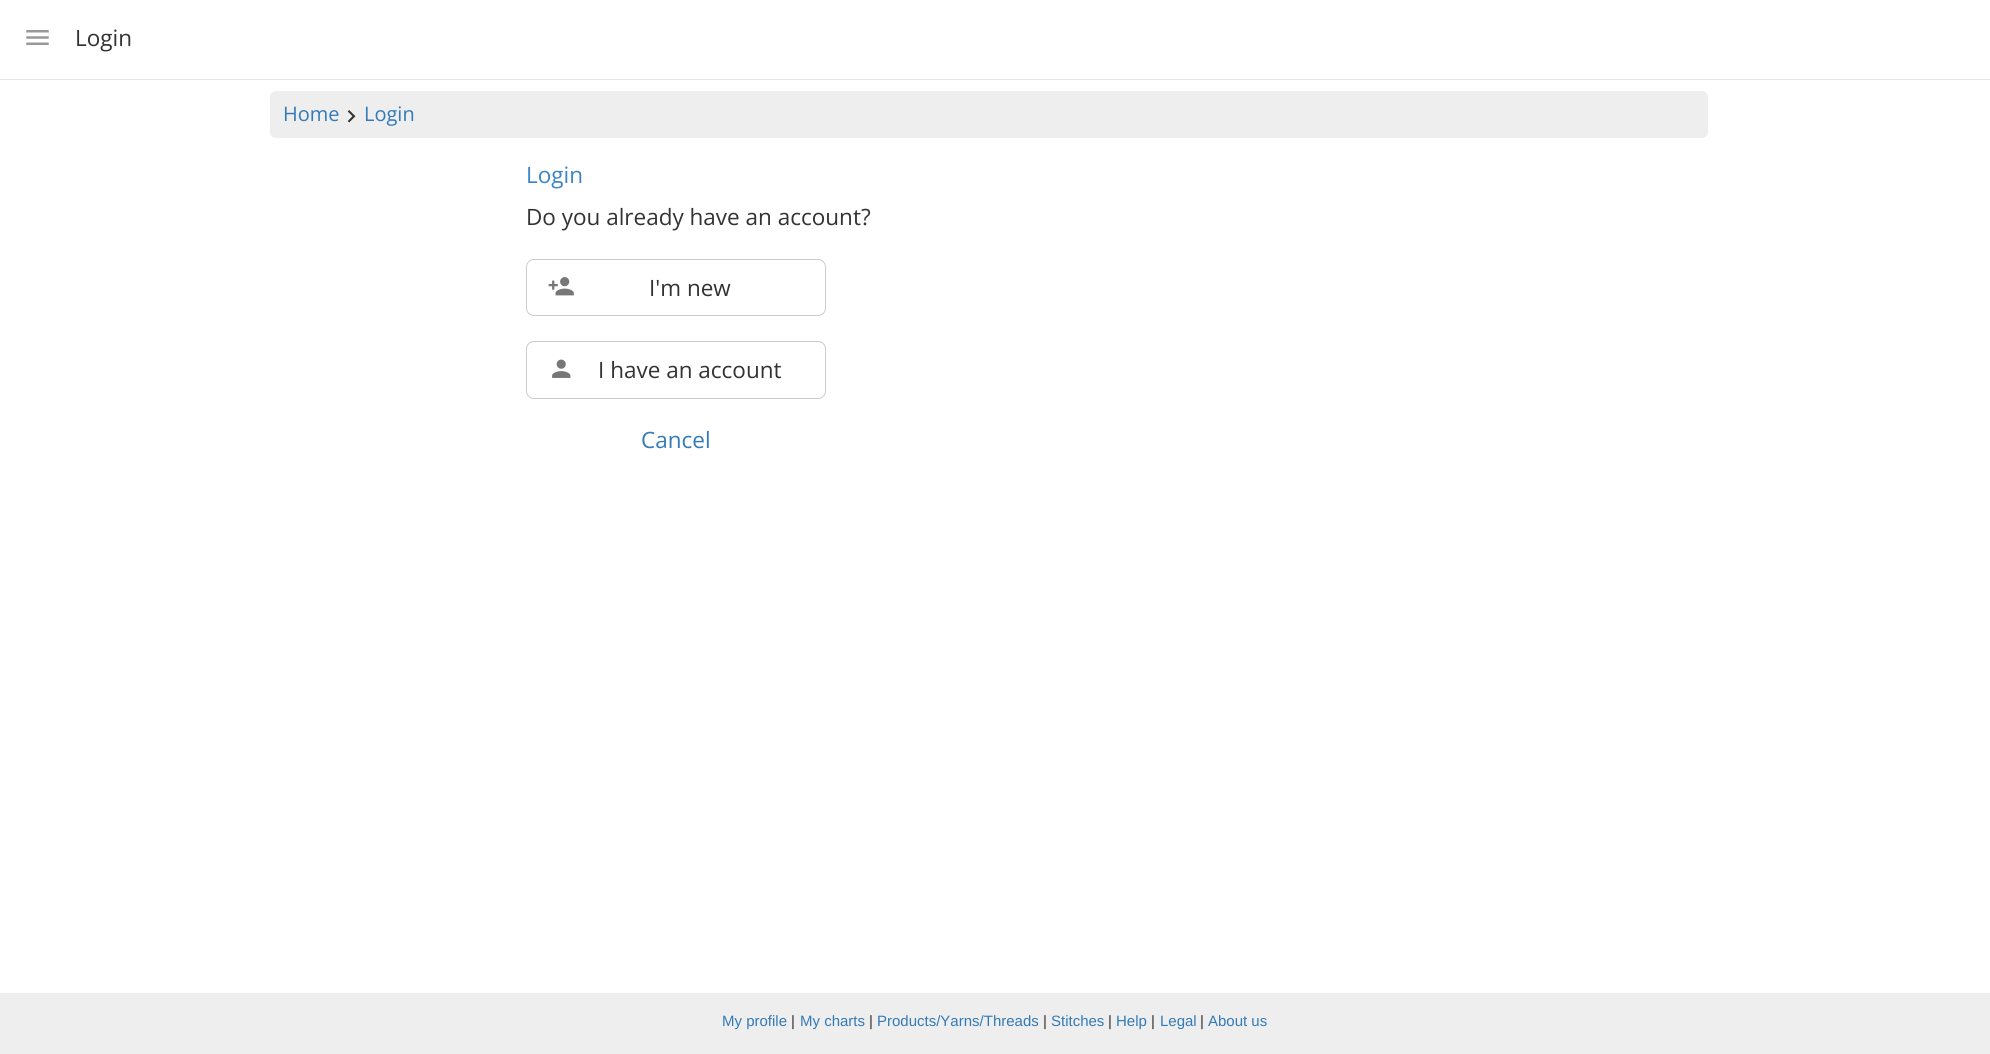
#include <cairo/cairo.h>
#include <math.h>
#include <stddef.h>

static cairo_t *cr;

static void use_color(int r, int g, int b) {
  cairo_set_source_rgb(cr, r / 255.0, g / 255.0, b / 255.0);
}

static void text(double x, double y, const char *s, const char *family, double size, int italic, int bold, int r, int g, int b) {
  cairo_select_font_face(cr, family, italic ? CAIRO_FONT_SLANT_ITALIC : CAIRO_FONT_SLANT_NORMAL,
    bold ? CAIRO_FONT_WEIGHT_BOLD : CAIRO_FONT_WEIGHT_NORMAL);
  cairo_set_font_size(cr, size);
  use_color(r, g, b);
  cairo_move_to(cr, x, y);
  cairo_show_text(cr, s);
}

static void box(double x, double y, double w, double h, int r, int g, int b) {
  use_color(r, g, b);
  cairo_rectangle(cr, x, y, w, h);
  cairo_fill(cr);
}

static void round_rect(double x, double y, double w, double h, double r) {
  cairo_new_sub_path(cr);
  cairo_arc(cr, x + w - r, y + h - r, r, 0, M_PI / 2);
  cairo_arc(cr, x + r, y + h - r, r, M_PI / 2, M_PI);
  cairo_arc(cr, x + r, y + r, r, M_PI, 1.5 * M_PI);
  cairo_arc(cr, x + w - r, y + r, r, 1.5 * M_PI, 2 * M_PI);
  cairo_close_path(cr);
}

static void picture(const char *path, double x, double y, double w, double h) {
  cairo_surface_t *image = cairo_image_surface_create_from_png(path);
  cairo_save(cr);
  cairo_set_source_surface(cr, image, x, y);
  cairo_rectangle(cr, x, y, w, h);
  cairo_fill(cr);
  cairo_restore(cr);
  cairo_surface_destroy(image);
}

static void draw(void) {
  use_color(255, 255, 255);
  cairo_paint(cr);
  box(0, 79, 1990, 1, 229, 229, 229);
  picture("img_01.png", 26, 30, 23, 15);
  use_color(238, 238, 238);
  round_rect(270, 91, 1438, 47, 6);
  cairo_fill(cr);
  picture("img_02.png", 347, 110, 9, 13);
  round_rect(526.5, 259.5, 299, 56, 7.5);
  use_color(204, 204, 204);
  cairo_set_line_width(cr, 1);
  cairo_stroke(cr);
  picture("img_03.png", 548, 277, 26, 19);
  round_rect(526.5, 341.5, 299, 57, 7.5);
  cairo_stroke(cr);
  picture("img_04.png", 552, 359, 19, 19);
  box(0, 993, 1990, 61, 238, 238, 238);
  text(75, 46, "Login", "Open Sans", 22.5, 0, 0, 51, 51, 51);
  text(283, 121, "Home", "Open Sans", 20, 0, 0, 51, 122, 183);
  text(364, 121, "Login", "Open Sans", 20, 0, 0, 51, 122, 183);
  text(526, 183, "Login", "Open Sans", 22.5, 0, 0, 61, 133, 198);
  text(526, 225, "Do you already have an account?", "Open Sans", 22.5, 0, 0, 51, 51, 51);
  text(649, 296, "I'm new", "Open Sans", 22.5, 0, 0, 51, 51, 51);
  text(598, 378, "I have an account", "Open Sans", 22.5, 0, 0, 51, 51, 51);
  text(641, 448, "Cancel", "Open Sans", 22.5, 0, 0, 51, 122, 183);
  text(722, 1026, "My profile", "Liberation Sans", 15, 0, 0, 51, 122, 183);
  text(791, 1026, "|", "Liberation Sans", 15, 0, 0, 51, 51, 51);
  text(800, 1026, "My charts", "Liberation Sans", 15, 0, 0, 51, 122, 183);
  text(869, 1026, "|", "Liberation Sans", 15, 0, 0, 51, 51, 51);
  text(877, 1026, "Products/Yarns/Threads", "Liberation Sans", 15, 0, 0, 51, 122, 183);
  text(1043, 1026, "|", "Liberation Sans", 15, 0, 0, 51, 51, 51);
  text(1051, 1026, "Stitches", "Liberation Sans", 15, 0, 0, 51, 122, 183);
  text(1108, 1026, "|", "Liberation Sans", 15, 0, 0, 51, 51, 51);
  text(1116, 1026, "Help", "Liberation Sans", 15, 0, 0, 51, 122, 183);
  text(1151, 1026, "|", "Liberation Sans", 15, 0, 0, 51, 51, 51);
  text(1160, 1026, "Legal", "Liberation Sans", 15, 0, 0, 51, 122, 183);
  text(1200, 1026, "|", "Liberation Sans", 15, 0, 0, 51, 51, 51);
  text(1208, 1026, "About us", "Liberation Sans", 15, 0, 0, 51, 122, 183);
}

int main(void) {
  cairo_surface_t *surface = cairo_image_surface_create(CAIRO_FORMAT_RGB24, 1990, 1054);
  cr = cairo_create(surface);
  cairo_font_options_t *options = cairo_font_options_create();
  cairo_font_options_set_hint_metrics(options, CAIRO_HINT_METRICS_OFF);
  cairo_font_options_set_hint_style(options, CAIRO_HINT_STYLE_NONE);
  cairo_set_font_options(cr, options);
  cairo_set_miter_limit(cr, 4);
  draw();
  cairo_surface_write_to_png(surface, "out.png");
  cairo_font_options_destroy(options);
  cairo_destroy(cr);
  cairo_surface_destroy(surface);
  return 0;
}
